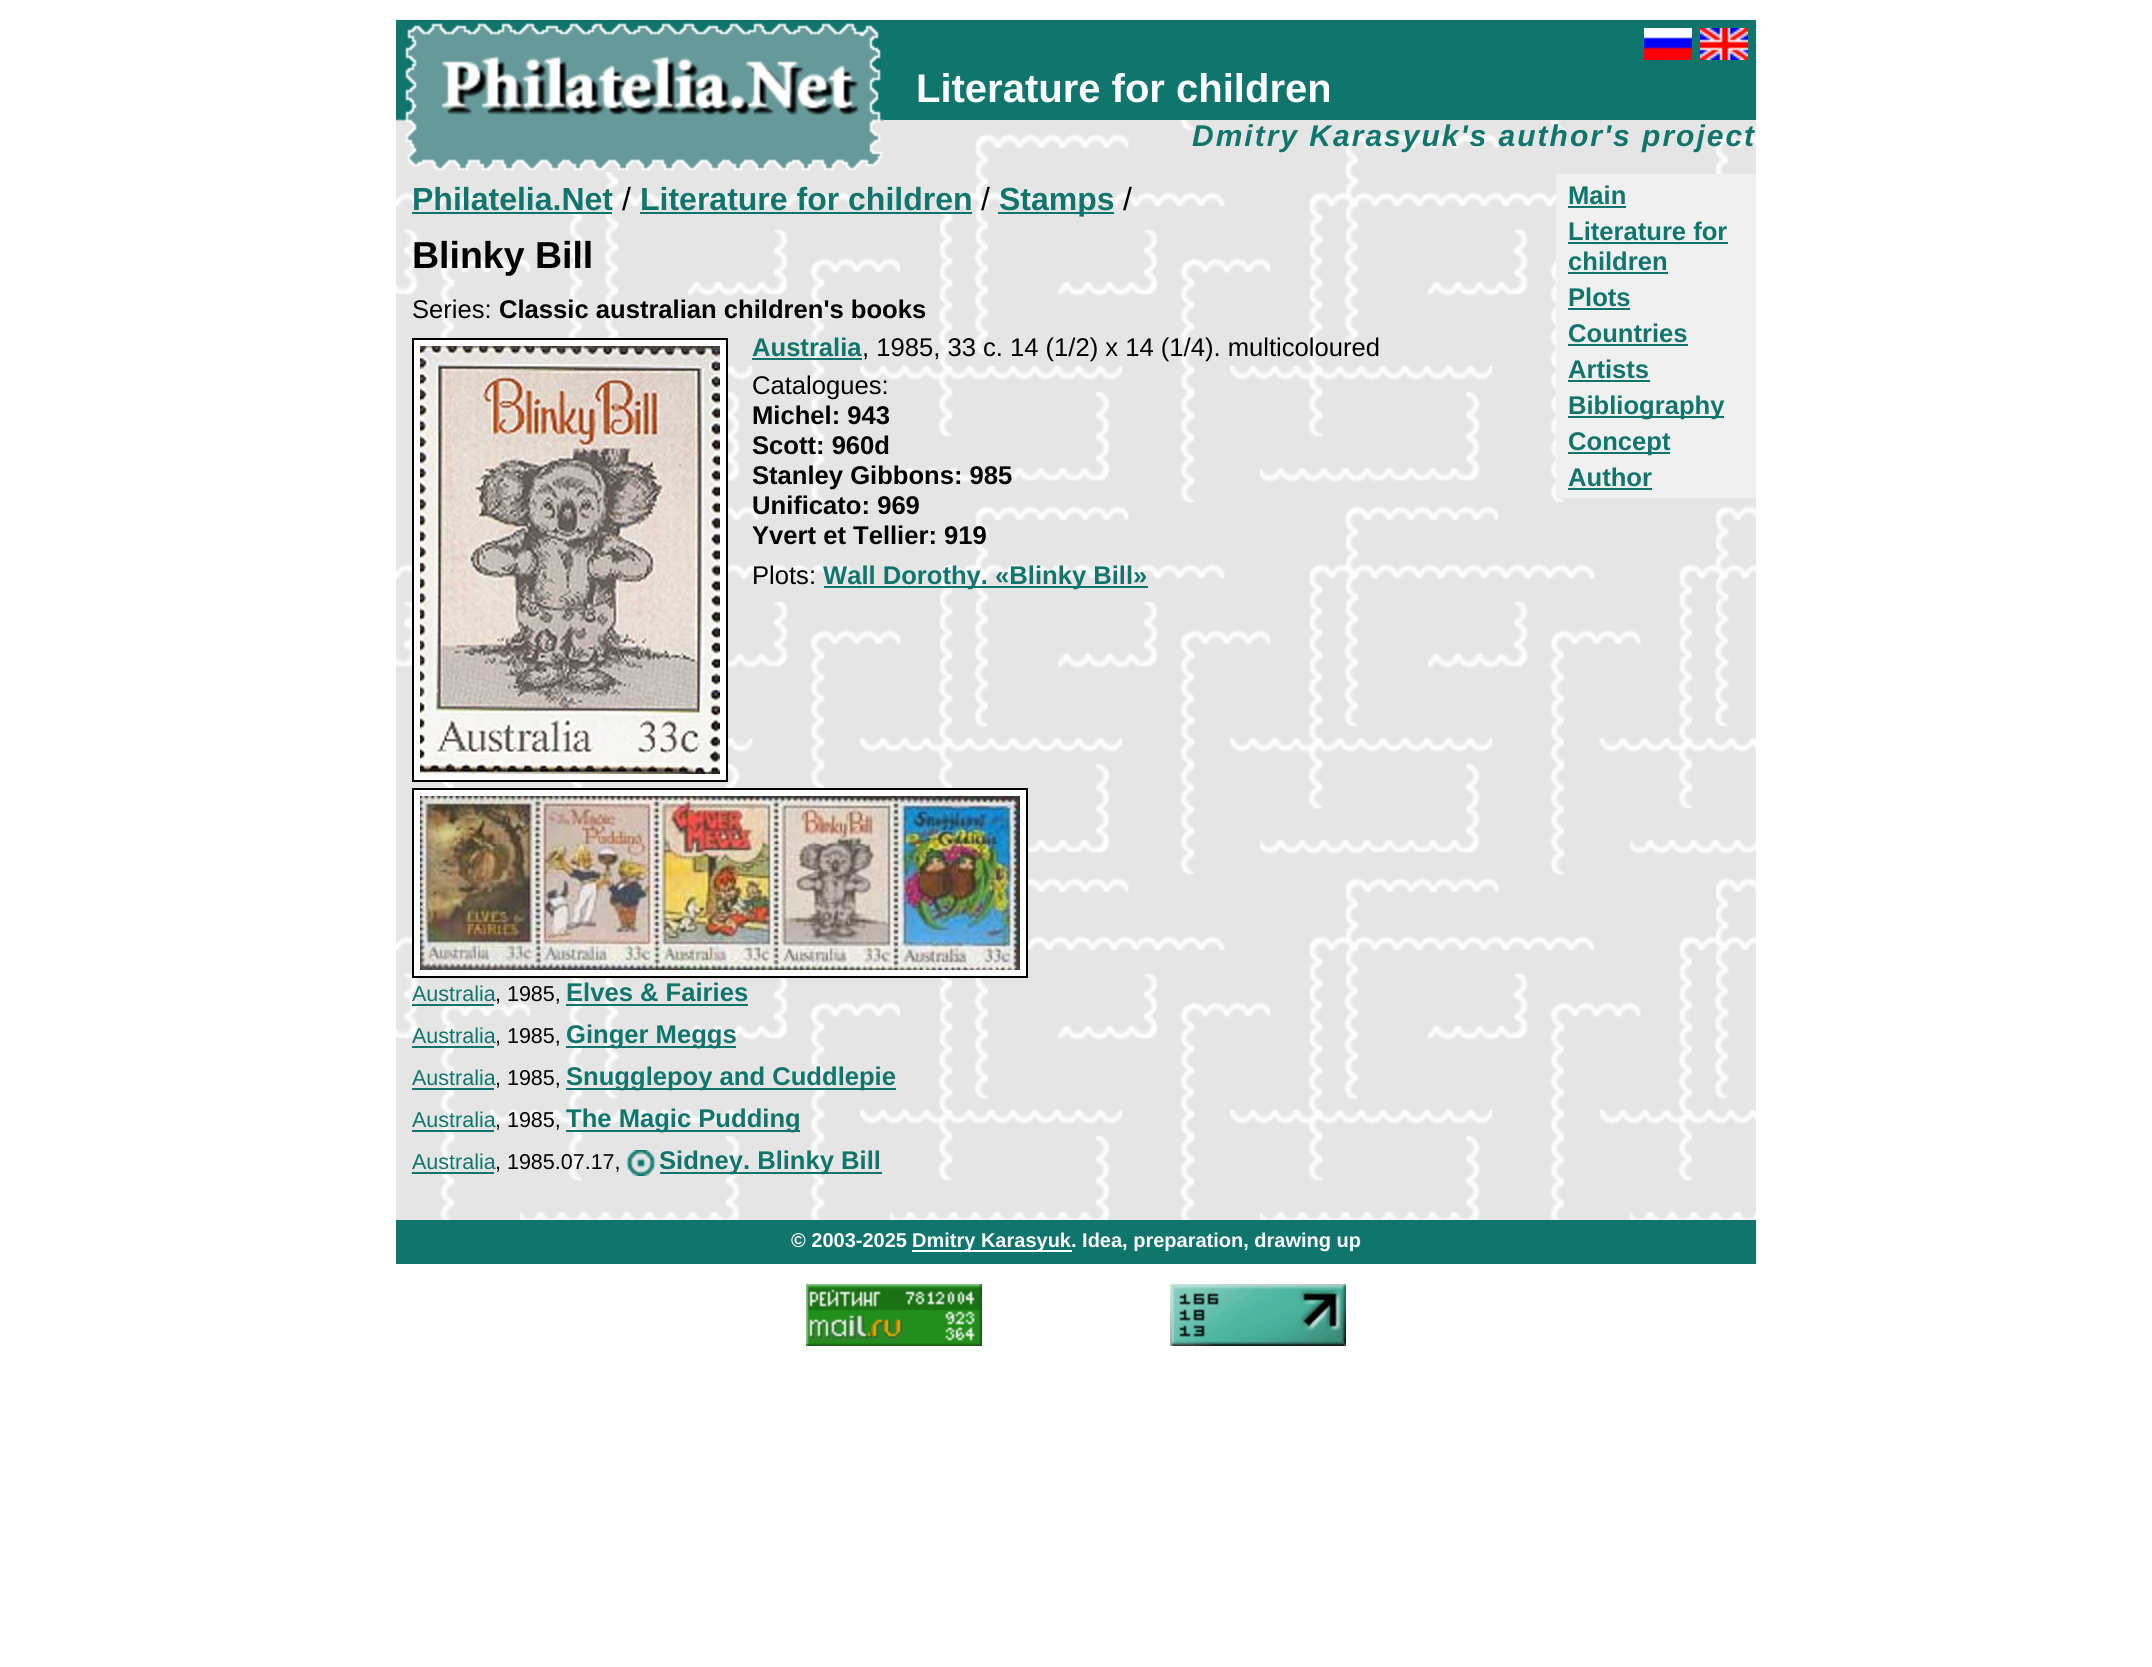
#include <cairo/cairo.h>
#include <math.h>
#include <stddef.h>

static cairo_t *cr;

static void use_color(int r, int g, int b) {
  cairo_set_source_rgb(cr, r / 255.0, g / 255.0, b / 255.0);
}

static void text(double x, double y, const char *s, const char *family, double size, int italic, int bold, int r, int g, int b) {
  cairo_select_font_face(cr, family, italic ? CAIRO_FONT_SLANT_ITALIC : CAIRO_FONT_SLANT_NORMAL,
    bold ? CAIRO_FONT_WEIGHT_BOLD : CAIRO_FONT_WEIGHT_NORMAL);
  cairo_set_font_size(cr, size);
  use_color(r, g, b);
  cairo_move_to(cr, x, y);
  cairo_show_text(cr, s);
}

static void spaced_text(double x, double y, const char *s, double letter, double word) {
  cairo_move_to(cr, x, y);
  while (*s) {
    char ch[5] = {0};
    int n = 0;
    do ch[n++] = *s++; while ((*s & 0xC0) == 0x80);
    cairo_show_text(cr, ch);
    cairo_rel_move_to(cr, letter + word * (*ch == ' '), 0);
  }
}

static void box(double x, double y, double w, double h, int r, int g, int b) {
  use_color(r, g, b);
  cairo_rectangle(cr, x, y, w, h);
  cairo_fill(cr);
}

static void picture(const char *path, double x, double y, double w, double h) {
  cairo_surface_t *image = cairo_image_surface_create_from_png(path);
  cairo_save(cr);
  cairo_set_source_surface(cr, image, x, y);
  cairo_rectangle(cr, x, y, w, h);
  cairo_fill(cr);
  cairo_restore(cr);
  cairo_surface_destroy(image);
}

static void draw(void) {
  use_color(255, 255, 255);
  cairo_paint(cr);
  picture("img_01.png", 396, 120, 1360, 1100);
  box(396, 20, 488, 99, 16, 117, 108);
  picture("img_02.png", 396, 119, 488, 53);
  picture("img_03.png", 405, 23, 478, 148);
  box(884, 20, 872, 100, 16, 117, 108);
  picture("img_04.png", 1644, 28, 48, 32);
  picture("img_05.png", 1700, 28, 48, 32);
  box(412, 212, 200, 2, 16, 117, 108);
  box(640, 212, 332, 2, 16, 117, 108);
  box(998, 212, 116, 2, 16, 117, 108);
  box(1556, 174, 200, 324, 240, 240, 240);
  box(1568, 206, 58, 2, 16, 117, 108);
  box(1568, 242, 160, 2, 16, 117, 108);
  box(1568, 272, 100, 2, 16, 117, 108);
  box(1568, 308, 62, 2, 16, 117, 108);
  box(1568, 344, 120, 2, 16, 117, 108);
  box(1568, 380, 82, 2, 16, 117, 108);
  box(1568, 416, 156, 2, 16, 117, 108);
  box(1568, 452, 102, 2, 16, 117, 108);
  box(1568, 488, 84, 2, 16, 117, 108);
  use_color(255, 255, 255);
  cairo_rectangle(cr, 413, 339, 314, 442);
  cairo_fill_preserve(cr);
  use_color(0, 0, 0);
  cairo_stroke(cr);
  picture("img_06.png", 420, 346, 300, 428);
  box(752, 358, 110, 2, 16, 117, 108);
  box(824, 586, 324, 2, 16, 117, 108);
  use_color(255, 255, 255);
  cairo_rectangle(cr, 413, 789, 614, 188);
  cairo_fill_preserve(cr);
  use_color(0, 0, 0);
  cairo_stroke(cr);
  picture("img_07.png", 420, 796, 600, 174);
  box(412, 1004, 82, 2, 16, 117, 108);
  box(566, 1004, 182, 2, 16, 117, 108);
  box(412, 1046, 82, 2, 16, 117, 108);
  box(566, 1046, 170, 2, 16, 117, 108);
  box(412, 1088, 82, 2, 16, 117, 108);
  box(566, 1088, 330, 2, 16, 117, 108);
  box(412, 1130, 82, 2, 16, 117, 108);
  box(566, 1130, 234, 2, 16, 117, 108);
  box(412, 1172, 82, 2, 16, 117, 108);
  picture("img_08.png", 626, 1150, 31, 26);
  box(660, 1172, 222, 2, 16, 117, 108);
  box(396, 1220, 1360, 44, 16, 117, 108);
  box(912, 1250, 160, 2, 255, 255, 255);
  picture("img_09.png", 806, 1284, 176, 62);
  picture("img_10.png", 1170, 1284, 176, 62);
  text(916, 102, "Literature for children", "Liberation Sans", 40, 0, 1, 255, 255, 255);
  cairo_select_font_face(cr, "Liberation Sans", CAIRO_FONT_SLANT_ITALIC, CAIRO_FONT_WEIGHT_BOLD);
  cairo_set_font_size(cr, 30);
  use_color(16, 117, 108);
  spaced_text(1192, 146, "Dmitry Karasyuk's author's project", 2, 0);
  text(412, 210, "Philatelia.Net", "Liberation Sans", 32, 0, 1, 16, 117, 108);
  text(622, 210, "/", "Liberation Sans", 32, 0, 0, 0, 0, 0);
  text(640, 210, "Literature for children", "Liberation Sans", 32, 0, 1, 16, 117, 108);
  text(981, 210, "/", "Liberation Sans", 32, 0, 0, 0, 0, 0);
  text(999, 210, "Stamps", "Liberation Sans", 32, 0, 1, 16, 117, 108);
  text(1123, 210, "/", "Liberation Sans", 32, 0, 0, 0, 0, 0);
  text(1568, 204, "Main", "Liberation Sans", 25.6, 0, 1, 16, 117, 108);
  text(1568, 240, "Literature for", "Liberation Sans", 25.6, 0, 1, 16, 117, 108);
  text(1568, 270, "children", "Liberation Sans", 25.6, 0, 1, 16, 117, 108);
  text(1568, 306, "Plots", "Liberation Sans", 25.6, 0, 1, 16, 117, 108);
  text(1568, 342, "Countries", "Liberation Sans", 25.6, 0, 1, 16, 117, 108);
  text(1568, 378, "Artists", "Liberation Sans", 25.6, 0, 1, 16, 117, 108);
  text(1568, 414, "Bibliography", "Liberation Sans", 25.6, 0, 1, 16, 117, 108);
  text(1568, 450, "Concept", "Liberation Sans", 25.6, 0, 1, 16, 117, 108);
  text(1568, 486, "Author", "Liberation Sans", 25.6, 0, 1, 16, 117, 108);
  text(412, 268, "Blinky Bill", "Liberation Sans", 37.5, 0, 1, 0, 0, 0);
  text(412, 318, "Series:", "Liberation Sans", 25.6, 0, 0, 0, 0, 0);
  text(499, 318, "Classic australian children's books", "Liberation Sans", 25.6, 0, 1, 0, 0, 0);
  text(752, 356, "Australia", "Liberation Sans", 25.6, 0, 1, 16, 117, 108);
  text(862, 356, ", 1985, 33 c. 14 (1/2) х 14 (1/4). multicoloured", "Liberation Sans", 25.6, 0, 0, 0, 0, 0);
  text(752, 394, "Catalogues:", "Liberation Sans", 25.6, 0, 0, 0, 0, 0);
  text(752, 424, "Michel: 943", "Liberation Sans", 25.6, 0, 1, 0, 0, 0);
  text(752, 454, "Scott: 960d", "Liberation Sans", 25.6, 0, 1, 0, 0, 0);
  text(752, 484, "Stanley Gibbons: 985", "Liberation Sans", 25.6, 0, 1, 0, 0, 0);
  text(752, 514, "Unificato: 969", "Liberation Sans", 25.6, 0, 1, 0, 0, 0);
  text(752, 544, "Yvert et Tellier: 919", "Liberation Sans", 25.6, 0, 1, 0, 0, 0);
  text(752, 584, "Plots:", "Liberation Sans", 25.6, 0, 0, 0, 0, 0);
  text(823, 584, "Wall Dorothy. «Blinky Bill»", "Liberation Sans", 25.6, 0, 1, 16, 117, 108);
  text(412, 1001, "Australia", "Liberation Sans", 21.5, 0, 0, 16, 117, 108);
  text(495, 1001, ", 1985,", "Liberation Sans", 21.5, 0, 0, 0, 0, 0);
  text(566, 1001, "Elves & Fairies", "Liberation Sans", 25.6, 0, 1, 16, 117, 108);
  text(412, 1043, "Australia", "Liberation Sans", 21.5, 0, 0, 16, 117, 108);
  text(495, 1043, ", 1985,", "Liberation Sans", 21.5, 0, 0, 0, 0, 0);
  text(566, 1043, "Ginger Meggs", "Liberation Sans", 25.6, 0, 1, 16, 117, 108);
  text(412, 1085, "Australia", "Liberation Sans", 21.5, 0, 0, 16, 117, 108);
  text(495, 1085, ", 1985,", "Liberation Sans", 21.5, 0, 0, 0, 0, 0);
  text(566, 1085, "Snugglepoy and Cuddlepie", "Liberation Sans", 25.6, 0, 1, 16, 117, 108);
  text(412, 1127, "Australia", "Liberation Sans", 21.5, 0, 0, 16, 117, 108);
  text(495, 1127, ", 1985,", "Liberation Sans", 21.5, 0, 0, 0, 0, 0);
  text(566, 1127, "The Magic Pudding", "Liberation Sans", 25.6, 0, 1, 16, 117, 108);
  text(412, 1169, "Australia", "Liberation Sans", 21.5, 0, 0, 16, 117, 108);
  text(495, 1169, ", 1985.07.17,", "Liberation Sans", 21.5, 0, 0, 0, 0, 0);
  text(659, 1169, "Sidney. Blinky Bill", "Liberation Sans", 25.6, 0, 1, 16, 117, 108);
  text(791, 1247, "© 2003-2025", "Liberation Sans", 20, 0, 1, 255, 255, 255);
  text(912, 1247, "Dmitry Karasyuk. Idea, preparation, drawing up", "Liberation Sans", 20, 0, 1, 255, 255, 255);
}

int main(void) {
  cairo_surface_t *surface = cairo_image_surface_create(CAIRO_FORMAT_RGB24, 2152, 1667);
  cr = cairo_create(surface);
  cairo_font_options_t *options = cairo_font_options_create();
  cairo_font_options_set_hint_metrics(options, CAIRO_HINT_METRICS_OFF);
  cairo_font_options_set_hint_style(options, CAIRO_HINT_STYLE_NONE);
  cairo_set_font_options(cr, options);
  cairo_set_miter_limit(cr, 4);
  draw();
  cairo_surface_write_to_png(surface, "out.png");
  cairo_font_options_destroy(options);
  cairo_destroy(cr);
  cairo_surface_destroy(surface);
  return 0;
}
